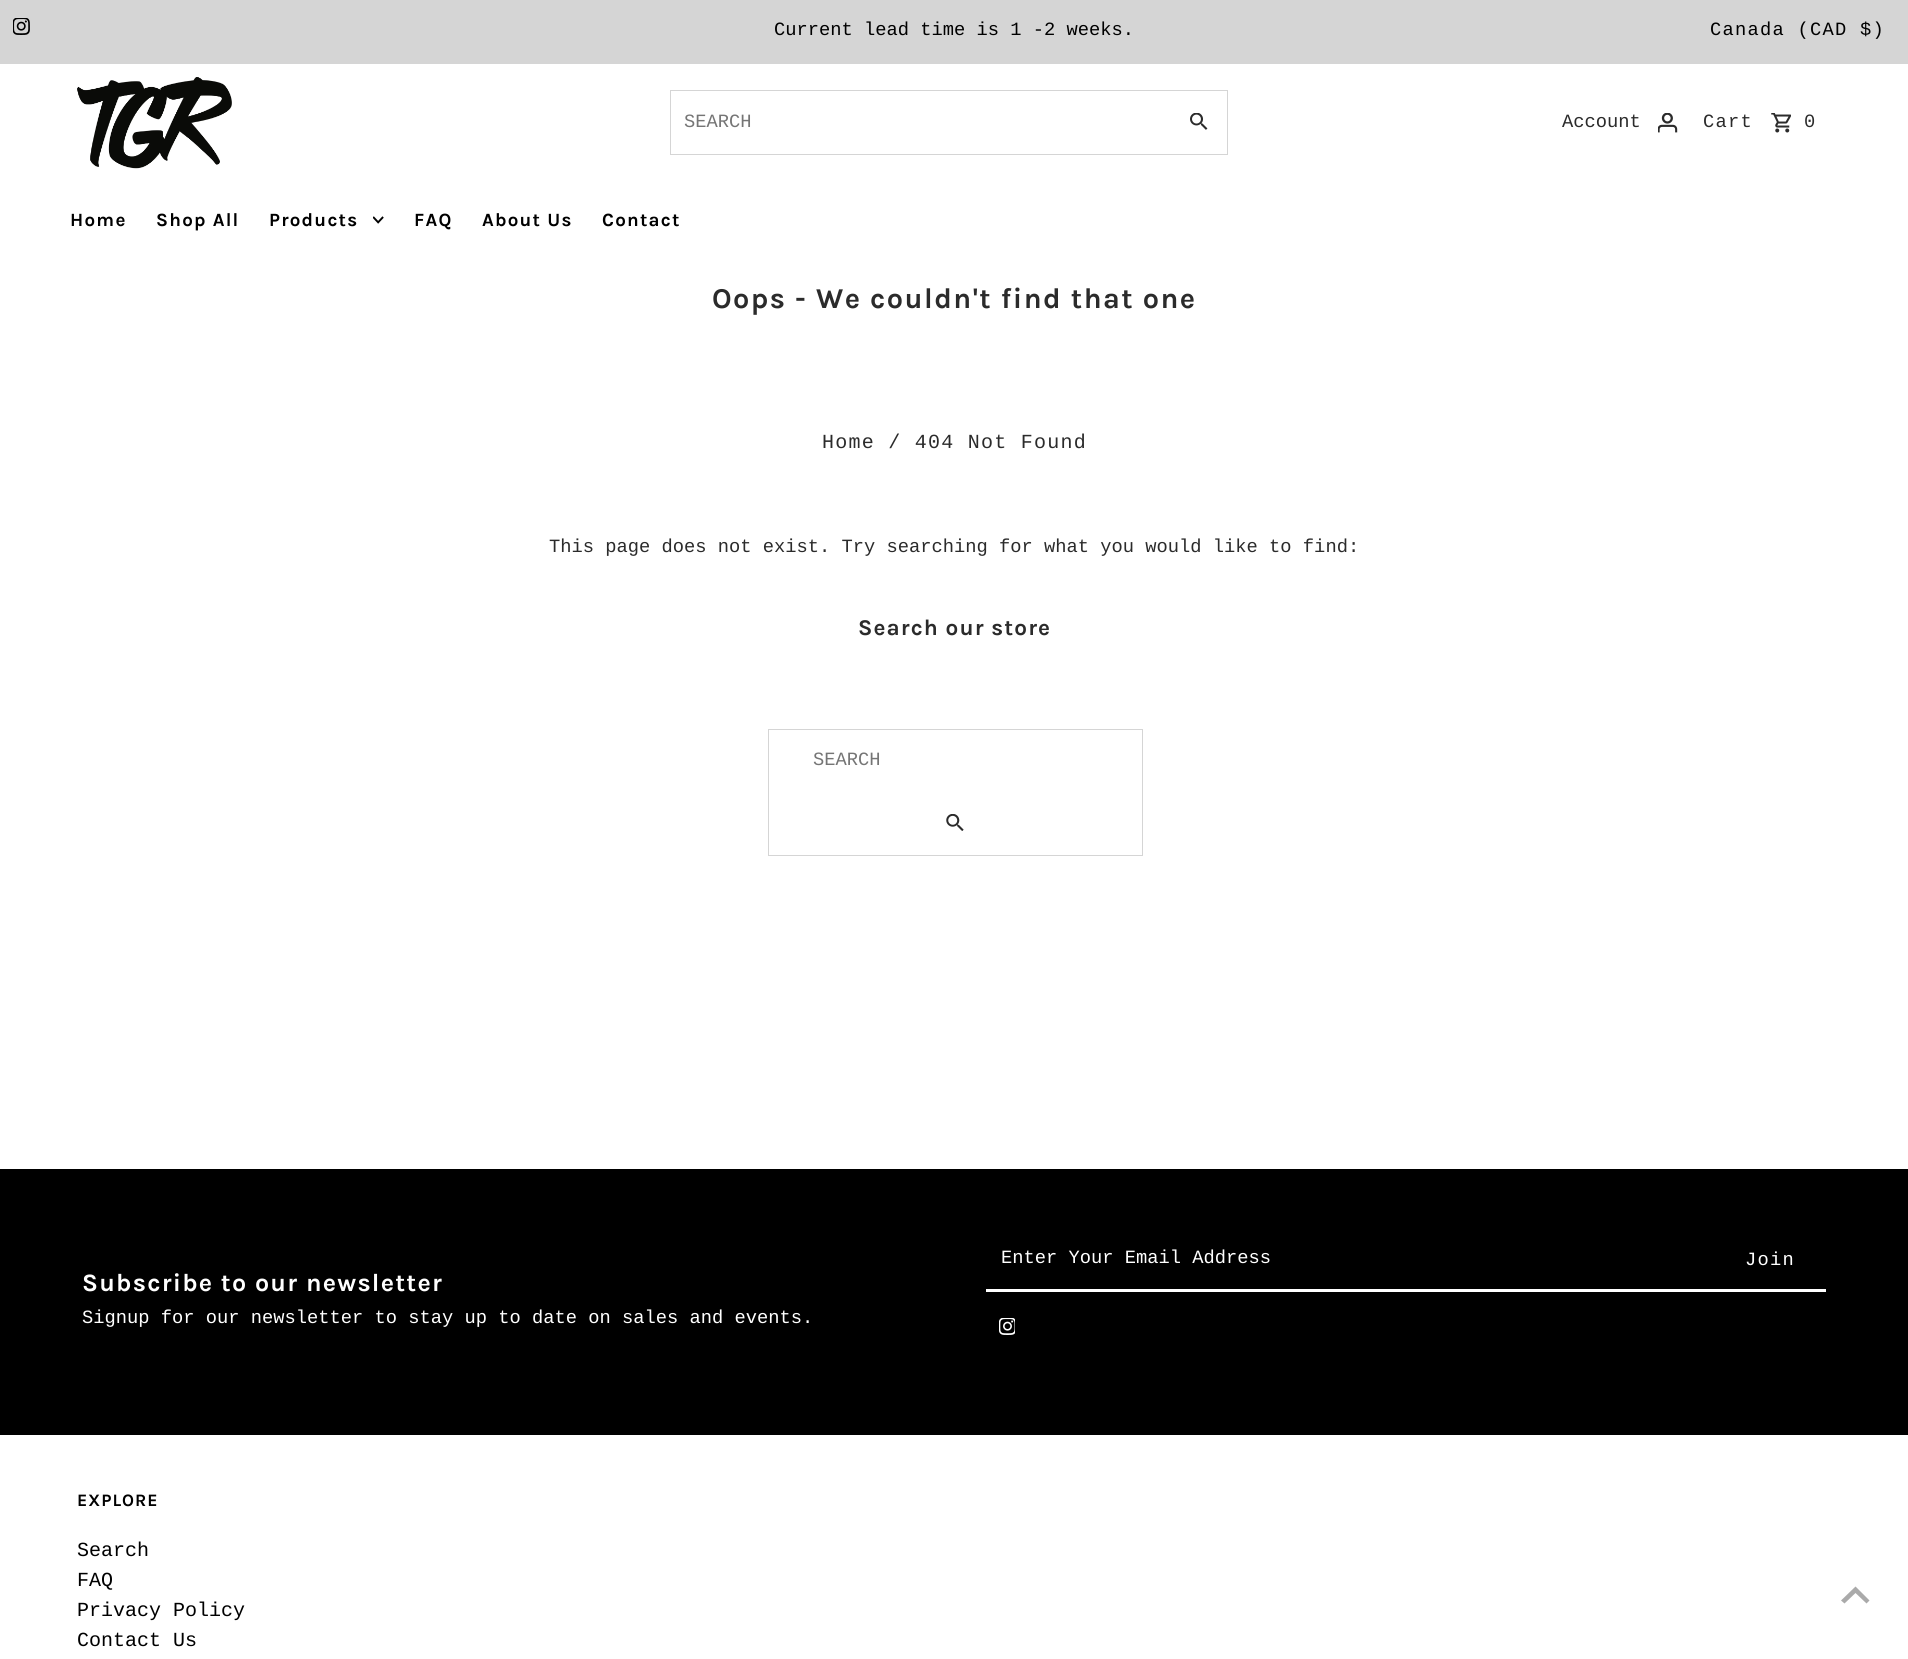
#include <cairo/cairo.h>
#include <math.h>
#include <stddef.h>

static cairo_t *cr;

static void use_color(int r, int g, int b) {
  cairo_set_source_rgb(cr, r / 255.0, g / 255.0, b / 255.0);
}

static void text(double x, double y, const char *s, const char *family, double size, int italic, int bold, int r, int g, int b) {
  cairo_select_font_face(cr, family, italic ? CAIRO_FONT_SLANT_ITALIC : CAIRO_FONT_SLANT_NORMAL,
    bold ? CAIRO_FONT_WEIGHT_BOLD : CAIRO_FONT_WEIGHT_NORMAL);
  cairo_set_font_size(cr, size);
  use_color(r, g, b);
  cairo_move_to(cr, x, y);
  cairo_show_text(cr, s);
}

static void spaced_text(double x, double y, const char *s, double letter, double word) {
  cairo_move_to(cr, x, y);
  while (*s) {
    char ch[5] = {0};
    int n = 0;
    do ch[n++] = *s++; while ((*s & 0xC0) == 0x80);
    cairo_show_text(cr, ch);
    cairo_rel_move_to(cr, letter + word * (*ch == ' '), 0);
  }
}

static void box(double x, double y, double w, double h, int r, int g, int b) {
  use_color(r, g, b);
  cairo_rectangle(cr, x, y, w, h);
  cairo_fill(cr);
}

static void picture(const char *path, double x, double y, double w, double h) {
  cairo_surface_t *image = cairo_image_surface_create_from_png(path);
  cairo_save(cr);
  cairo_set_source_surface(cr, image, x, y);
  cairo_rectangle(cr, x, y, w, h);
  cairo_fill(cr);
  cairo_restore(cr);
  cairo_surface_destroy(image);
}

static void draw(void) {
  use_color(255, 255, 255);
  cairo_paint(cr);
  box(0, 0, 1908, 64, 213, 213, 213);
  picture("img_01.png", 13, 18, 17, 17);
  picture("img_02.png", 77, 77, 155, 92);
  cairo_rectangle(cr, 670.5, 90.5, 557, 64);
  cairo_set_line_width(cr, 1);
  cairo_stroke(cr);
  picture("img_03.png", 1190, 113, 18, 17);
  picture("img_04.png", 1658, 113, 20, 20);
  picture("img_05.png", 1771, 113, 20, 20);
  picture("img_06.png", 373, 216, 11, 8);
  cairo_rectangle(cr, 768.5, 729.5, 374, 126);
  cairo_stroke(cr);
  picture("img_07.png", 946, 814, 18, 17);
  box(0, 1169, 1908, 266, 0, 0, 0);
  box(986, 1289, 840, 3, 255, 255, 255);
  picture("img_08.png", 999, 1318, 16, 17);
  use_color(170, 170, 170);
  cairo_new_path(cr);
  cairo_move_to(cr, 1855.5, 1586.5);
  cairo_line_to(cr, 1841, 1600.5);
  cairo_line_to(cr, 1844.5, 1603.5);
  cairo_line_to(cr, 1855.5, 1593);
  cairo_line_to(cr, 1866.5, 1603.5);
  cairo_line_to(cr, 1869.5, 1600.5);
  cairo_close_path(cr);
  cairo_fill(cr);
  text(774, 35, "Current lead time is 1 -2 weeks.", "Liberation Mono", 18.75, 0, 0, 0, 0, 0);
  spaced_text(1710, 35, "Canada (CAD $)", 1.25, 0);
  text(684, 127, "SEARCH", "Liberation Mono", 18.75, 0, 0, 117, 117, 117);
  text(1562, 127, "Account", "Liberation Mono", 18.75, 0, 0, 43, 43, 43);
  spaced_text(1703, 127, "Cart", 1.25, 0);
  spaced_text(1804, 127, "0", 1.25, 0);
  cairo_select_font_face(cr, "Karla", CAIRO_FONT_SLANT_NORMAL, CAIRO_FONT_WEIGHT_BOLD);
  use_color(0, 0, 0);
  spaced_text(70, 226, "Home", 1.25, 0);
  spaced_text(156, 226, "Shop All", 1.25, 0);
  spaced_text(269, 226, "Products", 1.25, 0);
  spaced_text(414, 226, "FAQ", 1.25, 0);
  spaced_text(482, 226, "About Us", 1.25, 0);
  spaced_text(602, 226, "Contact", 1.25, 0);
  cairo_set_font_size(cr, 28.75);
  use_color(43, 43, 43);
  spaced_text(712, 308, "Oops - We couldn't find that one", 1.45, 0);
  cairo_select_font_face(cr, "Liberation Mono", CAIRO_FONT_SLANT_NORMAL, CAIRO_FONT_WEIGHT_NORMAL);
  cairo_set_font_size(cr, 20);
  spaced_text(822, 448, "Home / 404 Not Found", 1.25, 0);
  text(549, 552, "This page does not exist. Try searching for what you would like to find:", "Liberation Mono", 18.75, 0, 0, 43, 43, 43);
  cairo_select_font_face(cr, "Karla", CAIRO_FONT_SLANT_NORMAL, CAIRO_FONT_WEIGHT_BOLD);
  cairo_set_font_size(cr, 22.5);
  spaced_text(858, 635, "Search our store", 1.1, 0);
  text(813, 765, "SEARCH", "Liberation Mono", 18.75, 0, 0, 117, 117, 117);
  text(1001, 1263, "Enter Your Email Address", "Liberation Mono", 18.75, 0, 0, 255, 255, 255);
  spaced_text(1745, 1265, "Join", 1.25, 0);
  cairo_select_font_face(cr, "Karla", CAIRO_FONT_SLANT_NORMAL, CAIRO_FONT_WEIGHT_BOLD);
  cairo_set_font_size(cr, 25);
  spaced_text(82, 1291, "Subscribe to our newsletter", 1.25, 0);
  text(82, 1323, "Signup for our newsletter to stay up to date on sales and events.", "Liberation Mono", 18.75, 0, 0, 255, 255, 255);
  cairo_select_font_face(cr, "Karla", CAIRO_FONT_SLANT_NORMAL, CAIRO_FONT_WEIGHT_BOLD);
  cairo_set_font_size(cr, 17.5);
  use_color(0, 0, 0);
  spaced_text(77, 1506, "EXPLORE", 1, 0);
  text(77, 1556, "Search", "Liberation Mono", 20, 0, 0, 0, 0, 0);
  text(77, 1586, "FAQ", "Liberation Mono", 20, 0, 0, 0, 0, 0);
  text(77, 1616, "Privacy Policy", "Liberation Mono", 20, 0, 0, 0, 0, 0);
  text(77, 1646, "Contact Us", "Liberation Mono", 20, 0, 0, 0, 0, 0);
}

int main(void) {
  cairo_surface_t *surface = cairo_image_surface_create(CAIRO_FORMAT_RGB24, 1908, 1659);
  cr = cairo_create(surface);
  cairo_font_options_t *options = cairo_font_options_create();
  cairo_font_options_set_hint_metrics(options, CAIRO_HINT_METRICS_OFF);
  cairo_font_options_set_hint_style(options, CAIRO_HINT_STYLE_NONE);
  cairo_set_font_options(cr, options);
  cairo_set_miter_limit(cr, 4);
  draw();
  cairo_surface_write_to_png(surface, "out.png");
  cairo_font_options_destroy(options);
  cairo_destroy(cr);
  cairo_surface_destroy(surface);
  return 0;
}
